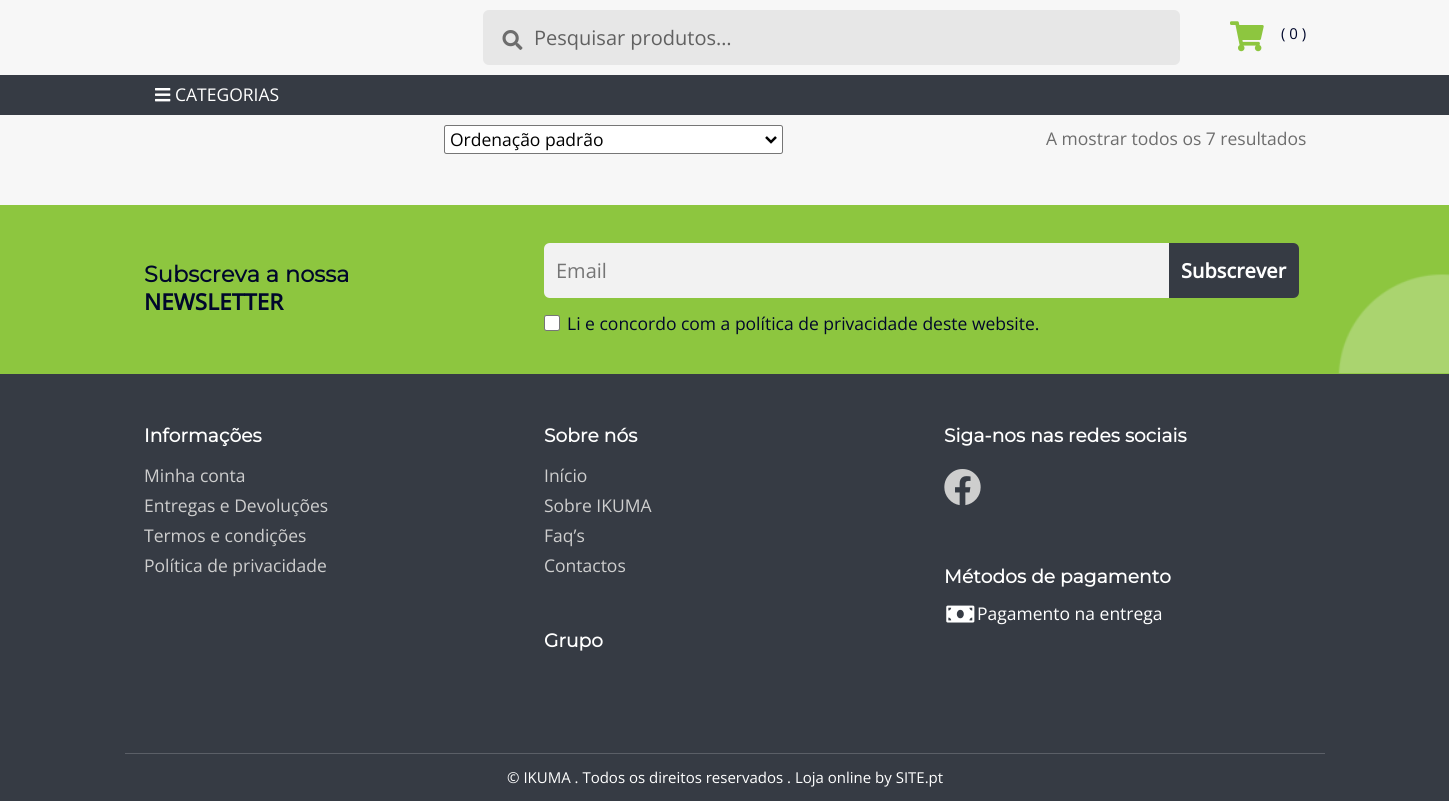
#include <cairo/cairo.h>
#include <math.h>
#include <stddef.h>

static cairo_t *cr;

static void use_color(int r, int g, int b) {
  cairo_set_source_rgb(cr, r / 255.0, g / 255.0, b / 255.0);
}

static void text(double x, double y, const char *s, const char *family, double size, int italic, int bold, int r, int g, int b) {
  cairo_select_font_face(cr, family, italic ? CAIRO_FONT_SLANT_ITALIC : CAIRO_FONT_SLANT_NORMAL,
    bold ? CAIRO_FONT_WEIGHT_BOLD : CAIRO_FONT_WEIGHT_NORMAL);
  cairo_set_font_size(cr, size);
  use_color(r, g, b);
  cairo_move_to(cr, x, y);
  cairo_show_text(cr, s);
}

static void box(double x, double y, double w, double h, int r, int g, int b) {
  use_color(r, g, b);
  cairo_rectangle(cr, x, y, w, h);
  cairo_fill(cr);
}

static void round_rect(double x, double y, double w, double h, double r) {
  cairo_new_sub_path(cr);
  cairo_arc(cr, x + w - r, y + h - r, r, 0, M_PI / 2);
  cairo_arc(cr, x + r, y + h - r, r, M_PI / 2, M_PI);
  cairo_arc(cr, x + r, y + r, r, M_PI, 1.5 * M_PI);
  cairo_arc(cr, x + w - r, y + r, r, 1.5 * M_PI, 2 * M_PI);
  cairo_close_path(cr);
}

static void picture(const char *path, double x, double y, double w, double h) {
  cairo_surface_t *image = cairo_image_surface_create_from_png(path);
  cairo_save(cr);
  cairo_set_source_surface(cr, image, x, y);
  cairo_rectangle(cr, x, y, w, h);
  cairo_fill(cr);
  cairo_restore(cr);
  cairo_surface_destroy(image);
}

static void draw(void) {
  use_color(247, 247, 247);
  cairo_paint(cr);
  use_color(231, 231, 231);
  round_rect(483, 10, 697, 55, 6);
  cairo_fill(cr);
  picture("img_01.png", 502, 30, 21, 20);
  picture("img_02.png", 1230, 21, 34, 31);
  box(0, 75, 1449, 40, 54, 59, 68);
  picture("img_03.png", 155, 88, 16, 14);
  use_color(255, 255, 255);
  round_rect(444.5, 125.5, 338, 28, 2);
  cairo_fill_preserve(cr);
  use_color(118, 118, 118);
  cairo_set_line_width(cr, 1);
  cairo_stroke(cr);
  cairo_new_path(cr);
  cairo_move_to(cr, 766, 137);
  cairo_line_to(cr, 771, 142);
  cairo_line_to(cr, 776, 137);
  use_color(0, 0, 0);
  cairo_set_line_width(cr, 2.5);
  cairo_stroke(cr);
  box(0, 205, 1449, 169, 141, 198, 63);
  picture("img_04.png", 1338, 274, 111, 100);
  use_color(242, 242, 242);
  cairo_new_path(cr);
  cairo_move_to(cr, 550, 243);
  cairo_line_to(cr, 1169, 243);
  cairo_line_to(cr, 1169, 298);
  cairo_line_to(cr, 550, 298);
  cairo_curve_to(cr, 546.5, 298, 544, 295.5, 544, 292);
  cairo_line_to(cr, 544, 249);
  cairo_curve_to(cr, 544, 245.5, 546.5, 243, 550, 243);
  cairo_close_path(cr);
  cairo_fill(cr);
  use_color(54, 59, 68);
  cairo_new_path(cr);
  cairo_move_to(cr, 1169, 243);
  cairo_line_to(cr, 1293, 243);
  cairo_curve_to(cr, 1296.5, 243, 1299, 245.5, 1299, 249);
  cairo_line_to(cr, 1299, 292);
  cairo_curve_to(cr, 1299, 295.5, 1296.5, 298, 1293, 298);
  cairo_line_to(cr, 1169, 298);
  cairo_close_path(cr);
  cairo_fill(cr);
  use_color(255, 255, 255);
  round_rect(544.5, 315.5, 15, 15, 2);
  cairo_fill_preserve(cr);
  use_color(118, 118, 118);
  cairo_set_line_width(cr, 1);
  cairo_stroke(cr);
  box(0, 374, 1449, 427, 54, 59, 68);
  picture("img_05.png", 944, 469, 37, 37);
  picture("img_06.png", 946, 605, 29, 18);
  box(125, 753, 1200, 1, 91, 95, 103);
  text(534, 45, "Pesquisar produtos…", "Open Sans", 20, 0, 0, 97, 97, 97);
  text(1281, 39, "( 0 )", "Open Sans", 15, 0, 0, 0, 7, 43);
  text(175, 101, "CATEGORIAS", "Open Sans", 17.5, 0, 0, 255, 255, 255);
  text(450, 146, "Ordenação padrão", "Open Sans", 17.5, 0, 0, 0, 0, 0);
  text(1046, 145, "A mostrar todos os 7 resultados", "Open Sans", 17.5, 0, 0, 109, 109, 109);
  text(144, 282, "Subscreva a nossa", "Montserrat", 22.5, 0, 1, 0, 7, 43);
  text(144, 310, "NEWSLETTER", "Open Sans", 22.5, 0, 1, 0, 7, 43);
  text(556, 278, "Email", "Open Sans", 20, 0, 0, 117, 117, 117);
  text(1181, 278, "Subscrever", "Open Sans", 20, 0, 1, 255, 255, 255);
  text(567, 330, "Li e concordo com a política de privacidade deste website.", "Open Sans", 17.5, 0, 0, 0, 7, 43);
  text(144, 442, "Informações", "Montserrat", 18.75, 0, 1, 255, 255, 255);
  text(144, 482, "Minha conta", "Open Sans", 17.5, 0, 0, 206, 206, 206);
  text(144, 512, "Entregas e Devoluções", "Open Sans", 17.5, 0, 0, 206, 206, 206);
  text(144, 542, "Termos e condições", "Open Sans", 17.5, 0, 0, 206, 206, 206);
  text(144, 572, "Política de privacidade", "Open Sans", 17.5, 0, 0, 206, 206, 206);
  text(544, 442, "Sobre nós", "Montserrat", 18.75, 0, 1, 255, 255, 255);
  text(544, 482, "Início", "Open Sans", 17.5, 0, 0, 206, 206, 206);
  text(544, 512, "Sobre IKUMA", "Open Sans", 17.5, 0, 0, 206, 206, 206);
  text(544, 542, "Faq’s", "Open Sans", 17.5, 0, 0, 206, 206, 206);
  text(544, 572, "Contactos", "Open Sans", 17.5, 0, 0, 206, 206, 206);
  text(544, 647, "Grupo", "Montserrat", 18.75, 0, 1, 255, 255, 255);
  text(944, 442, "Siga-nos nas redes sociais", "Montserrat", 18.75, 0, 1, 255, 255, 255);
  text(944, 583, "Métodos de pagamento", "Montserrat", 18.75, 0, 1, 255, 255, 255);
  text(977, 620, "Pagamento na entrega", "Open Sans", 17.5, 0, 0, 255, 255, 255);
  text(507, 783, "© IKUMA . Todos os direitos reservados . Loja online by SITE.pt", "Open Sans", 15, 0, 0, 255, 255, 255);
}

int main(void) {
  cairo_surface_t *surface = cairo_image_surface_create(CAIRO_FORMAT_RGB24, 1449, 801);
  cr = cairo_create(surface);
  cairo_font_options_t *options = cairo_font_options_create();
  cairo_font_options_set_hint_metrics(options, CAIRO_HINT_METRICS_OFF);
  cairo_font_options_set_hint_style(options, CAIRO_HINT_STYLE_NONE);
  cairo_set_font_options(cr, options);
  cairo_set_miter_limit(cr, 4);
  draw();
  cairo_surface_write_to_png(surface, "out.png");
  cairo_font_options_destroy(options);
  cairo_destroy(cr);
  cairo_surface_destroy(surface);
  return 0;
}
